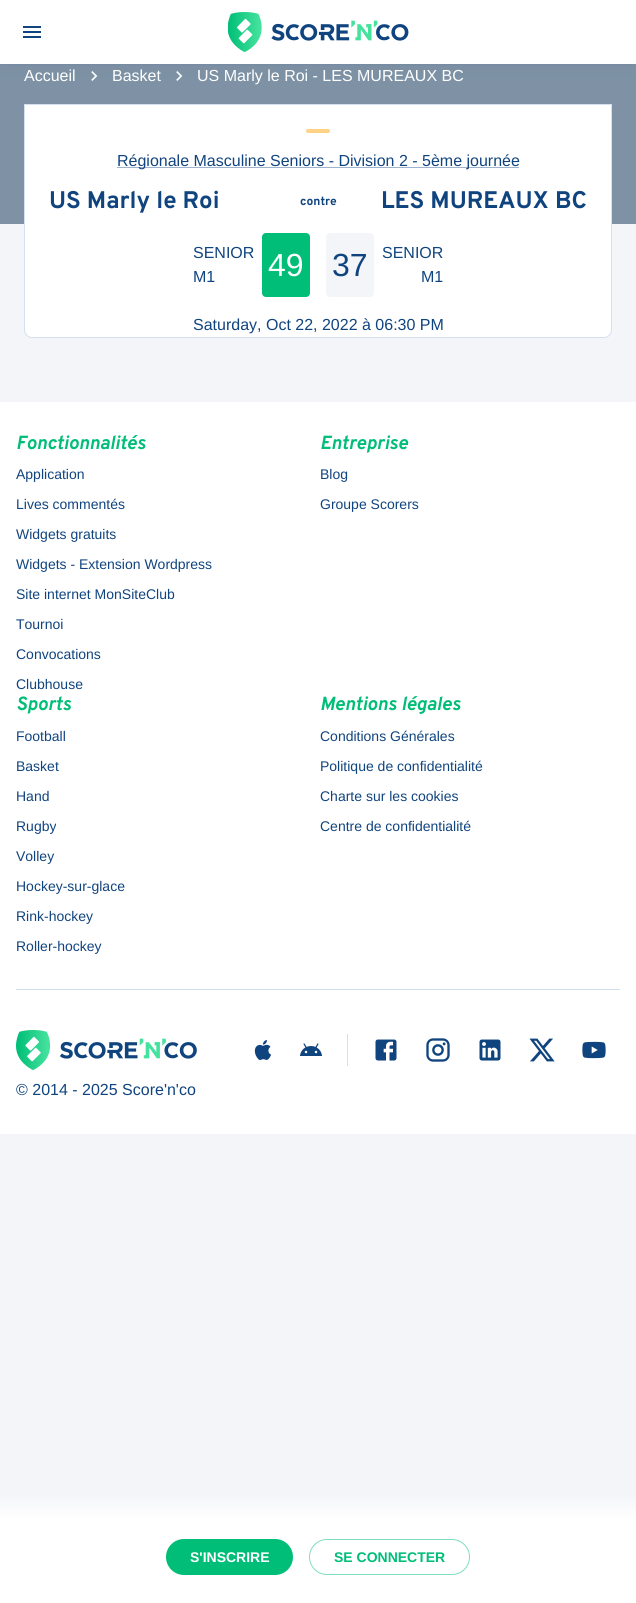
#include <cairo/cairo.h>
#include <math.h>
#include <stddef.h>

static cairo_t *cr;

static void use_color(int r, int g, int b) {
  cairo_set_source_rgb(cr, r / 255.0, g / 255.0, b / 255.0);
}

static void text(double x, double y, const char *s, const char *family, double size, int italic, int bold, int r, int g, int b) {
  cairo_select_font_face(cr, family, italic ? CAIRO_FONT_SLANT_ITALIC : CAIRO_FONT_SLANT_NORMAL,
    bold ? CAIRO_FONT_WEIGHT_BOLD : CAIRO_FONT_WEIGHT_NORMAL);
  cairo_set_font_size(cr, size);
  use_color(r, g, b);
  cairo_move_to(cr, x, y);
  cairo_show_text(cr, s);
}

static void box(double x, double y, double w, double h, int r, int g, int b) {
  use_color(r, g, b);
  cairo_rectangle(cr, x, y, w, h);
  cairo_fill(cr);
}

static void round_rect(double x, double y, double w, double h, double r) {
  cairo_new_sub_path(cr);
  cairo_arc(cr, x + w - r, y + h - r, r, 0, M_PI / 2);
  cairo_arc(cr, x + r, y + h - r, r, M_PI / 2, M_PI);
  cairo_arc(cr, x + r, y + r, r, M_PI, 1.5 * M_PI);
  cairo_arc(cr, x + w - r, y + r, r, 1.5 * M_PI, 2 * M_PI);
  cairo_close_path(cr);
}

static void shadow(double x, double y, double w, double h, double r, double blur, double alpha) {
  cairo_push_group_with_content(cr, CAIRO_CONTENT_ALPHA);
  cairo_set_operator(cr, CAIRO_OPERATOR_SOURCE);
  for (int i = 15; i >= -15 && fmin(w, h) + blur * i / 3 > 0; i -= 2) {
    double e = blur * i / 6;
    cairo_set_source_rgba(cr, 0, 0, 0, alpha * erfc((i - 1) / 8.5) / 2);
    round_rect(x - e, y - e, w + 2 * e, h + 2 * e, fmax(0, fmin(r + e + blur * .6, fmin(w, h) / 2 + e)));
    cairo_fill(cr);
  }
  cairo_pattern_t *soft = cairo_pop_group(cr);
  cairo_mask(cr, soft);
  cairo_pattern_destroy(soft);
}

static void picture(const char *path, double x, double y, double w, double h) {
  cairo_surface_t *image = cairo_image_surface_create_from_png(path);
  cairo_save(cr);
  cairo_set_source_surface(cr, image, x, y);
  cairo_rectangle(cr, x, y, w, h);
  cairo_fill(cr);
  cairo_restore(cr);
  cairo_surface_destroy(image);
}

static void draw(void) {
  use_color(255, 255, 255);
  cairo_paint(cr);
  box(0, 224, 636, 1299, 243, 245, 249);
  box(0, 64, 636, 160, 127, 146, 165);
  use_color(16, 68, 127);
  shadow(0, 0, 636, 64, 0, 1, 0.1);
  picture("img_03.png", 91, 71, 7, 10);
  picture("img_03.png", 176, 71, 7, 10);
  shadow(0, 0, 636, 64, 0, 12, 0.1);
  box(0, 0, 636, 64, 255, 255, 255);
  picture("img_01.png", 23, 26, 18, 12);
  picture("img_02.png", 228, 12, 181, 40);
  cairo_new_path(cr);
  cairo_move_to(cr, 24.5, 104.5);
  cairo_line_to(cr, 611.5, 104.5);
  cairo_line_to(cr, 611.5, 330);
  cairo_curve_to(cr, 611.5, 334, 608, 337.5, 604, 337.5);
  cairo_line_to(cr, 32, 337.5);
  cairo_curve_to(cr, 28, 337.5, 24.5, 334, 24.5, 330);
  cairo_close_path(cr);
  cairo_fill_preserve(cr);
  use_color(210, 224, 239);
  cairo_set_line_width(cr, 1);
  cairo_stroke(cr);
  use_color(254, 211, 133);
  round_rect(306, 129, 24, 4, 2);
  cairo_fill(cr);
  box(117, 167, 402, 1, 159, 180, 204);
  use_color(0, 190, 119);
  round_rect(262, 233, 48, 64, 4);
  cairo_fill(cr);
  use_color(243, 245, 249);
  round_rect(326, 233, 48, 64, 4);
  cairo_fill(cr);
  box(0, 402, 636, 732, 255, 255, 255);
  box(16, 989, 604, 1, 210, 224, 239);
  picture("img_04.png", 16, 1030, 181, 40);
  picture("img_05.png", 254, 1040, 17, 20);
  picture("img_06.png", 300, 1043, 22, 13);
  box(347, 1034, 1, 32, 210, 224, 239);
  picture("img_07.png", 375, 1039, 22, 22);
  picture("img_08.png", 426, 1038, 24, 24);
  picture("img_09.png", 479, 1039, 22, 22);
  picture("img_10.png", 529, 1038, 26, 24);
  picture("img_11.png", 582, 1041, 24, 18);
  cairo_save(cr);
  cairo_rectangle(cr, 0, 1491, 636, 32);
  cairo_clip(cr);
  use_color(255, 255, 255);
  shadow(-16, 1507, 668, 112, 0, 8, 1);
  cairo_restore(cr);
  use_color(0, 190, 119);
  round_rect(166, 1539, 127, 36, 18);
  cairo_fill(cr);
  round_rect(309.5, 1539.5, 160, 35, 17.5);
  use_color(128, 223, 187);
  cairo_stroke(cr);
  text(24, 81, "Accueil", "Liberation Sans", 16, 0, 0, 255, 255, 255);
  text(112, 81, "Basket", "Liberation Sans", 16, 0, 0, 255, 255, 255);
  text(197, 81, "US Marly le Roi - LES MUREAUX BC", "Liberation Sans", 16, 0, 0, 255, 255, 255);
  text(117, 166, "Régionale Masculine Seniors - Division 2 - 5ème journée", "Liberation Sans", 16, 0, 0, 16, 68, 127);
  text(49, 208, "US Marly le Roi", "Overpass", 24, 0, 1, 16, 68, 127);
  text(300, 205, "contre", "Overpass", 12, 0, 1, 16, 68, 127);
  text(381, 208, "LES MUREAUX BC", "Overpass", 24, 0, 1, 16, 68, 127);
  text(193, 258, "SENIOR", "Liberation Sans", 16, 0, 0, 16, 68, 127);
  text(193, 282, "M1", "Liberation Sans", 16, 0, 0, 16, 68, 127);
  text(268, 276, "49", "Liberation Sans", 32, 0, 0, 255, 255, 255);
  text(332, 276, "37", "Liberation Sans", 32, 0, 0, 16, 68, 127);
  text(382, 258, "SENIOR", "Liberation Sans", 16, 0, 0, 16, 68, 127);
  text(421, 282, "M1", "Liberation Sans", 16, 0, 0, 16, 68, 127);
  text(193, 330, "Saturday, Oct 22, 2022 à 06:30 PM", "Liberation Sans", 16, 0, 0, 16, 68, 127);
  text(16, 449, "Fonctionnalités", "Overpass", 19, 1, 1, 0, 190, 119);
  text(16, 479, "Application", "Liberation Sans", 14, 0, 0, 16, 68, 127);
  text(16, 509, "Lives commentés", "Liberation Sans", 14, 0, 0, 16, 68, 127);
  text(16, 539, "Widgets gratuits", "Liberation Sans", 14, 0, 0, 16, 68, 127);
  text(16, 569, "Widgets - Extension Wordpress", "Liberation Sans", 14, 0, 0, 16, 68, 127);
  text(16, 599, "Site internet MonSiteClub", "Liberation Sans", 14, 0, 0, 16, 68, 127);
  text(16, 629, "Tournoi", "Liberation Sans", 14, 0, 0, 16, 68, 127);
  text(16, 659, "Convocations", "Liberation Sans", 14, 0, 0, 16, 68, 127);
  text(16, 689, "Clubhouse", "Liberation Sans", 14, 0, 0, 16, 68, 127);
  text(320, 449, "Entreprise", "Overpass", 19, 1, 1, 0, 190, 119);
  text(320, 479, "Blog", "Liberation Sans", 14, 0, 0, 16, 68, 127);
  text(320, 509, "Groupe Scorers", "Liberation Sans", 14, 0, 0, 16, 68, 127);
  text(16, 710, "Sports", "Overpass", 19, 1, 1, 0, 190, 119);
  text(16, 741, "Football", "Liberation Sans", 14, 0, 0, 16, 68, 127);
  text(16, 771, "Basket", "Liberation Sans", 14, 0, 0, 16, 68, 127);
  text(16, 801, "Hand", "Liberation Sans", 14, 0, 0, 16, 68, 127);
  text(16, 831, "Rugby", "Liberation Sans", 14, 0, 0, 16, 68, 127);
  text(16, 861, "Volley", "Liberation Sans", 14, 0, 0, 16, 68, 127);
  text(16, 891, "Hockey-sur-glace", "Liberation Sans", 14, 0, 0, 16, 68, 127);
  text(16, 921, "Rink-hockey", "Liberation Sans", 14, 0, 0, 16, 68, 127);
  text(16, 951, "Roller-hockey", "Liberation Sans", 14, 0, 0, 16, 68, 127);
  text(320, 710, "Mentions légales", "Overpass", 19, 1, 1, 0, 190, 119);
  text(320, 741, "Conditions Générales", "Liberation Sans", 14, 0, 0, 16, 68, 127);
  text(320, 771, "Politique de confidentialité", "Liberation Sans", 14, 0, 0, 16, 68, 127);
  text(320, 801, "Charte sur les cookies", "Liberation Sans", 14, 0, 0, 16, 68, 127);
  text(320, 831, "Centre de confidentialité", "Liberation Sans", 14, 0, 0, 16, 68, 127);
  text(16, 1095, "© 2014 - 2025 Score'n'co", "Liberation Sans", 16, 0, 0, 16, 68, 127);
  text(190, 1562, "S'INSCRIRE", "Liberation Sans", 14, 0, 1, 255, 255, 255);
  text(334, 1562, "SE CONNECTER", "Liberation Sans", 14, 0, 1, 0, 190, 119);
}

int main(void) {
  cairo_surface_t *surface = cairo_image_surface_create(CAIRO_FORMAT_RGB24, 636, 1603);
  cr = cairo_create(surface);
  cairo_font_options_t *options = cairo_font_options_create();
  cairo_font_options_set_hint_metrics(options, CAIRO_HINT_METRICS_OFF);
  cairo_font_options_set_hint_style(options, CAIRO_HINT_STYLE_NONE);
  cairo_set_font_options(cr, options);
  cairo_set_miter_limit(cr, 4);
  draw();
  cairo_surface_write_to_png(surface, "out.png");
  cairo_font_options_destroy(options);
  cairo_destroy(cr);
  cairo_surface_destroy(surface);
  return 0;
}
